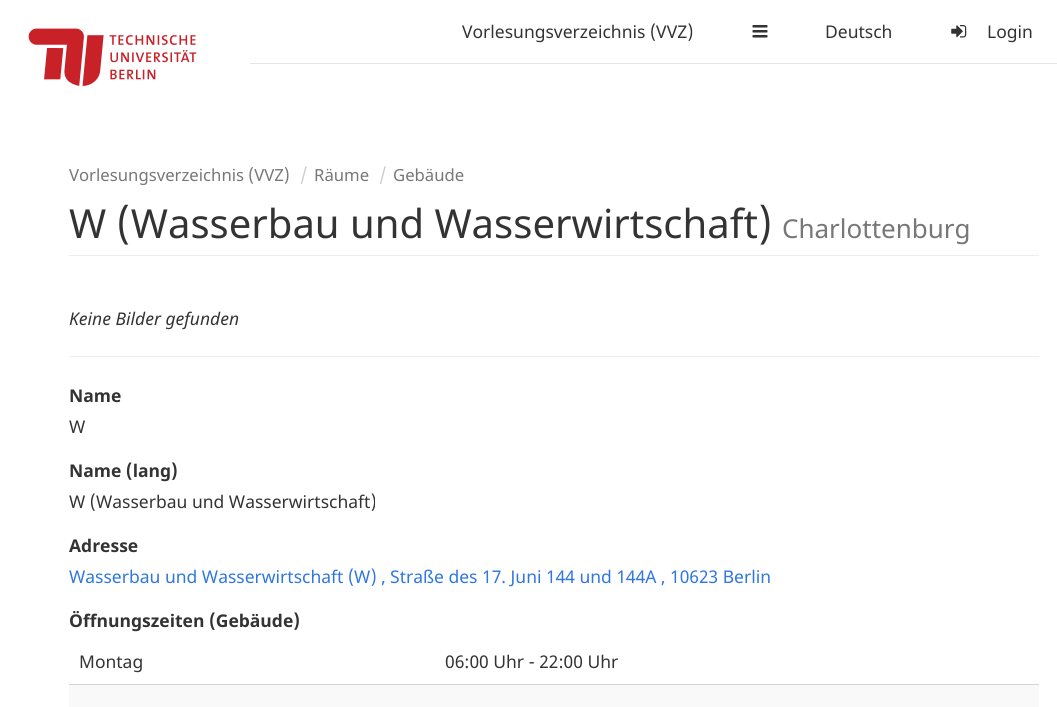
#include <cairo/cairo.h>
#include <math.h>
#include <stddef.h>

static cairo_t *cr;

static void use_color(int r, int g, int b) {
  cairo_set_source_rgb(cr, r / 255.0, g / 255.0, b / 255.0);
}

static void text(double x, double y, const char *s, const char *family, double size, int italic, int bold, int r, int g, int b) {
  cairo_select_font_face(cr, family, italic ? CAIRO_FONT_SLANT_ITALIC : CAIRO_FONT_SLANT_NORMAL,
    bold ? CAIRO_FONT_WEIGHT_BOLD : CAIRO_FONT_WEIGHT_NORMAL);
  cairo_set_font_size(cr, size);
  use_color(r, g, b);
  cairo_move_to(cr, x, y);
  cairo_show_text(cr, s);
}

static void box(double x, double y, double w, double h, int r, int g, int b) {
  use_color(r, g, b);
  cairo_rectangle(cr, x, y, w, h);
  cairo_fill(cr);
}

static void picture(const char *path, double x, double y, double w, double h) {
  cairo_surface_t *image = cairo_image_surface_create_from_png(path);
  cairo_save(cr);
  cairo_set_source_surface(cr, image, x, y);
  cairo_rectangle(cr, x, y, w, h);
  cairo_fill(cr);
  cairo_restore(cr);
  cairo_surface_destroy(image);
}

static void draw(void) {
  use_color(255, 255, 255);
  cairo_paint(cr);
  picture("img_01.png", 28, 28, 169, 58);
  picture("img_02.png", 752, 25, 16, 13);
  picture("img_03.png", 951, 25, 16, 13);
  box(250, 63, 807, 1, 229, 229, 229);
  box(69, 255, 970, 1, 238, 238, 238);
  box(69, 356, 970, 1, 238, 238, 238);
  box(69, 685, 970, 22, 249, 249, 249);
  box(69, 684, 970, 1, 212, 212, 212);
  text(462, 38, "Vorlesungsverzeichnis (VVZ)", "Noto Sans", 17.5, 0, 0, 51, 51, 51);
  text(825, 38, "Deutsch", "Noto Sans", 17.5, 0, 0, 51, 51, 51);
  text(987, 38, "Login", "Noto Sans", 17.5, 0, 0, 51, 51, 51);
  text(69, 181, "Vorlesungsverzeichnis (VVZ)", "Noto Sans", 16.7, 0, 0, 119, 119, 119);
  text(300, 181, "/", "Noto Sans", 17.5, 0, 0, 204, 204, 204);
  text(314, 181, "Räume", "Noto Sans", 16.7, 0, 0, 119, 119, 119);
  text(379, 181, "/", "Noto Sans", 17.5, 0, 0, 204, 204, 204);
  text(393, 181, "Gebäude", "Noto Sans", 16.7, 0, 0, 119, 119, 119);
  text(69, 238, "W (Wasserbau und Wasserwirtschaft)", "Noto Sans", 40, 0, 0, 51, 51, 51);
  text(782, 238, "Charlottenburg", "Noto Sans", 26, 0, 0, 119, 119, 119);
  text(69, 325, "Keine Bilder gefunden", "Noto Sans", 17.5, 1, 0, 51, 51, 51);
  text(69, 402, "Name", "Noto Sans", 17.5, 0, 1, 51, 51, 51);
  text(69, 433, "W", "Noto Sans", 17.5, 0, 0, 51, 51, 51);
  text(69, 477, "Name (lang)", "Noto Sans", 17.5, 0, 1, 51, 51, 51);
  text(69, 508, "W (Wasserbau und Wasserwirtschaft)", "Noto Sans", 17.5, 0, 0, 51, 51, 51);
  text(69, 552, "Adresse", "Noto Sans", 17.5, 0, 1, 51, 51, 51);
  text(69, 583, "Wasserbau und Wasserwirtschaft (W) , Straße des 17. Juni 144 und 144A , 10623 Berlin", "Noto Sans", 17.5, 0, 0, 47, 118, 223);
  text(69, 627, "Öffnungszeiten (Gebäude)", "Noto Sans", 17.5, 0, 1, 51, 51, 51);
  text(79, 668, "Montag", "Noto Sans", 17.5, 0, 0, 51, 51, 51);
  text(445, 668, "06:00 Uhr - 22:00 Uhr", "Noto Sans", 17.5, 0, 0, 51, 51, 51);
}

int main(void) {
  cairo_surface_t *surface = cairo_image_surface_create(CAIRO_FORMAT_RGB24, 1057, 707);
  cr = cairo_create(surface);
  cairo_font_options_t *options = cairo_font_options_create();
  cairo_font_options_set_hint_metrics(options, CAIRO_HINT_METRICS_OFF);
  cairo_font_options_set_hint_style(options, CAIRO_HINT_STYLE_NONE);
  cairo_set_font_options(cr, options);
  cairo_set_miter_limit(cr, 4);
  draw();
  cairo_surface_write_to_png(surface, "out.png");
  cairo_font_options_destroy(options);
  cairo_destroy(cr);
  cairo_surface_destroy(surface);
  return 0;
}
